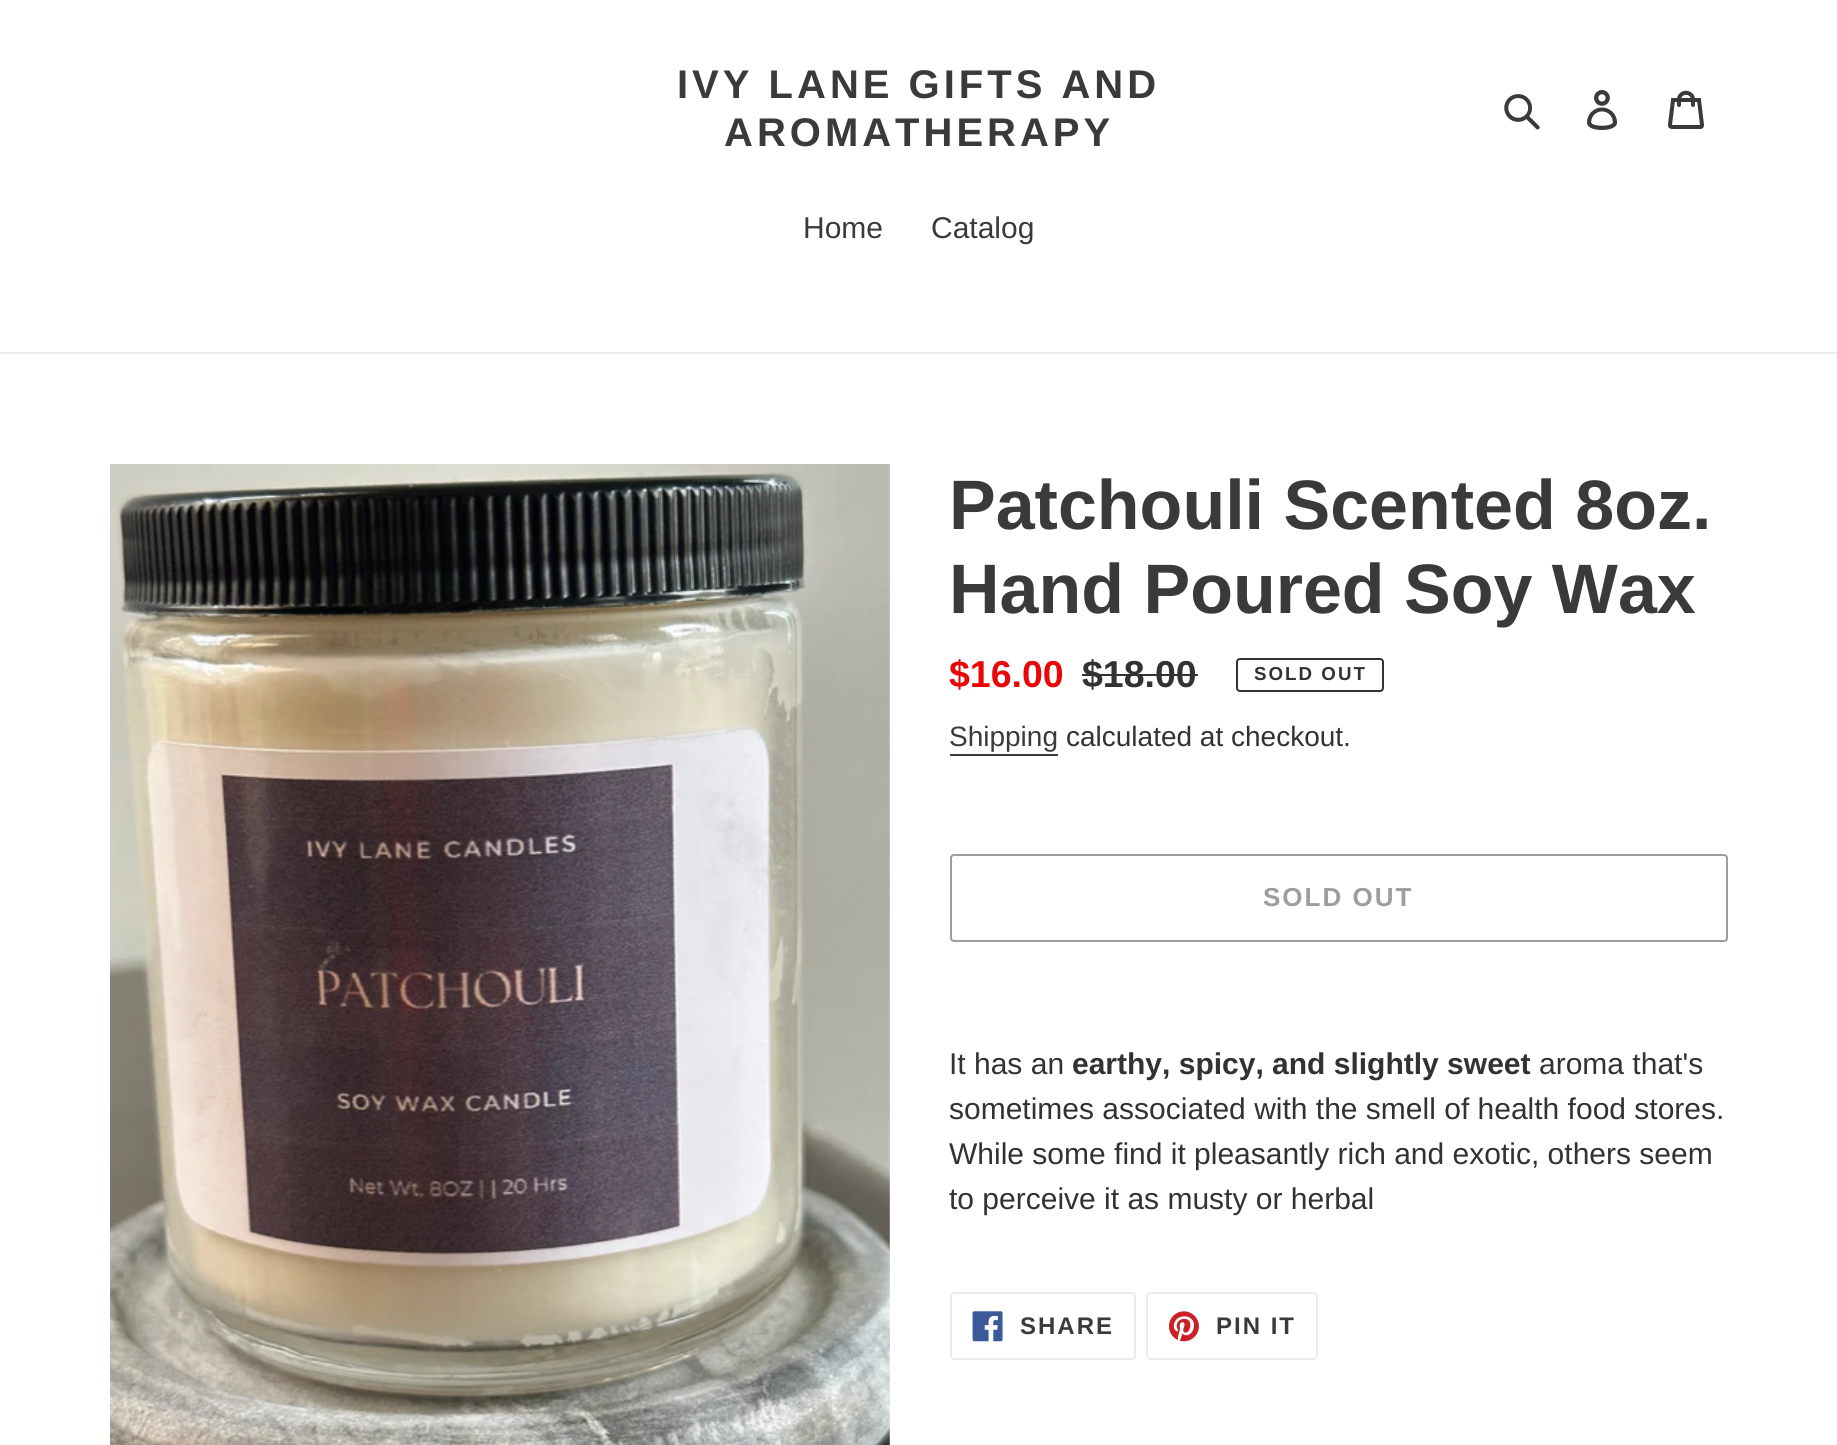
#include <cairo/cairo.h>
#include <math.h>
#include <stddef.h>

static cairo_t *cr;

static void use_color(int r, int g, int b) {
  cairo_set_source_rgb(cr, r / 255.0, g / 255.0, b / 255.0);
}

static void text(double x, double y, const char *s, const char *family, double size, int italic, int bold, int r, int g, int b) {
  cairo_select_font_face(cr, family, italic ? CAIRO_FONT_SLANT_ITALIC : CAIRO_FONT_SLANT_NORMAL,
    bold ? CAIRO_FONT_WEIGHT_BOLD : CAIRO_FONT_WEIGHT_NORMAL);
  cairo_set_font_size(cr, size);
  use_color(r, g, b);
  cairo_move_to(cr, x, y);
  cairo_show_text(cr, s);
}

static void spaced_text(double x, double y, const char *s, double letter, double word) {
  cairo_move_to(cr, x, y);
  while (*s) {
    char ch[5] = {0};
    int n = 0;
    do ch[n++] = *s++; while ((*s & 0xC0) == 0x80);
    cairo_show_text(cr, ch);
    cairo_rel_move_to(cr, letter + word * (*ch == ' '), 0);
  }
}

static void box(double x, double y, double w, double h, int r, int g, int b) {
  use_color(r, g, b);
  cairo_rectangle(cr, x, y, w, h);
  cairo_fill(cr);
}

static void round_rect(double x, double y, double w, double h, double r) {
  cairo_new_sub_path(cr);
  cairo_arc(cr, x + w - r, y + h - r, r, 0, M_PI / 2);
  cairo_arc(cr, x + r, y + h - r, r, M_PI / 2, M_PI);
  cairo_arc(cr, x + r, y + r, r, M_PI, 1.5 * M_PI);
  cairo_arc(cr, x + w - r, y + r, r, 1.5 * M_PI, 2 * M_PI);
  cairo_close_path(cr);
}

static void picture(const char *path, double x, double y, double w, double h) {
  cairo_surface_t *image = cairo_image_surface_create_from_png(path);
  cairo_save(cr);
  cairo_set_source_surface(cr, image, x, y);
  cairo_rectangle(cr, x, y, w, h);
  cairo_fill(cr);
  cairo_restore(cr);
  cairo_surface_destroy(image);
}

static void draw(void) {
  use_color(255, 255, 255);
  cairo_paint(cr);
  picture("img_01.png", 1504, 94, 36, 36);
  picture("img_02.png", 1587, 90, 31, 40);
  picture("img_03.png", 1668, 90, 36, 39);
  box(0, 352, 1837, 2, 235, 235, 235);
  picture("img_04.png", 110, 464, 780, 981);
  box(1082, 674, 116, 2, 51, 50, 50);
  round_rect(1237, 659, 146, 32, 3);
  cairo_stroke(cr);
  box(950, 754, 108, 2, 58, 58, 58);
  round_rect(951, 855, 776, 86, 3);
  use_color(157, 157, 157);
  cairo_stroke(cr);
  round_rect(951, 1293, 184, 66, 3);
  use_color(235, 235, 235);
  cairo_stroke(cr);
  picture("img_05.png", 972, 1311, 31, 31);
  round_rect(1147, 1293, 170, 66, 3);
  cairo_stroke(cr);
  picture("img_06.png", 1168, 1311, 31, 31);
  cairo_select_font_face(cr, "Liberation Sans", CAIRO_FONT_SLANT_NORMAL, CAIRO_FONT_WEIGHT_BOLD);
  cairo_set_font_size(cr, 40);
  use_color(58, 58, 58);
  spaced_text(677, 98, "IVY LANE GIFTS AND", 4, 0);
  spaced_text(724, 146, "AROMATHERAPY", 4, 0);
  text(803, 238, "Home", "Liberation Sans", 30, 0, 0, 58, 58, 58);
  text(931, 238, "Catalog", "Liberation Sans", 30, 0, 0, 58, 58, 58);
  text(949, 529, "Patchouli Scented 8oz.", "Liberation Sans", 70, 0, 1, 58, 58, 58);
  text(949, 613, "Hand Poured Soy Wax", "Liberation Sans", 70, 0, 1, 58, 58, 58);
  text(949, 687, "$16.00", "Liberation Sans", 37.5, 0, 1, 234, 6, 6);
  text(1082, 687, "$18.00", "Liberation Sans", 37.5, 0, 1, 51, 50, 50);
  cairo_set_font_size(cr, 18.75);
  spaced_text(1254, 680, "SOLD OUT", 2, 0);
  text(949, 746, "Shipping", "Liberation Sans", 28, 0, 0, 58, 58, 58);
  text(1066, 746, "calculated at checkout.", "Liberation Sans", 28, 0, 0, 51, 50, 50);
  cairo_select_font_face(cr, "Liberation Sans", CAIRO_FONT_SLANT_NORMAL, CAIRO_FONT_WEIGHT_BOLD);
  cairo_set_font_size(cr, 26);
  use_color(157, 157, 157);
  spaced_text(1263, 906, "SOLD OUT", 2, 0);
  text(949, 1074, "It has an", "Liberation Sans", 30, 0, 0, 51, 50, 50);
  text(1072, 1074, "earthy, spicy, and slightly sweet", "Liberation Sans", 30, 0, 1, 51, 50, 50);
  text(1539, 1074, "aroma that's", "Liberation Sans", 30, 0, 0, 51, 50, 50);
  text(949, 1119, "sometimes associated with the smell of health food stores.", "Liberation Sans", 30, 0, 0, 51, 50, 50);
  text(949, 1164, "While some find it pleasantly rich and exotic, others seem", "Liberation Sans", 30, 0, 0, 51, 50, 50);
  text(949, 1209, "to perceive it as musty or herbal", "Liberation Sans", 30, 0, 0, 51, 50, 50);
  cairo_select_font_face(cr, "Liberation Sans", CAIRO_FONT_SLANT_NORMAL, CAIRO_FONT_WEIGHT_BOLD);
  cairo_set_font_size(cr, 24);
  use_color(58, 58, 58);
  spaced_text(1020, 1334, "SHARE", 2, 0);
  spaced_text(1216, 1334, "PIN IT", 2, 0);
}

int main(void) {
  cairo_surface_t *surface = cairo_image_surface_create(CAIRO_FORMAT_RGB24, 1837, 1445);
  cr = cairo_create(surface);
  cairo_font_options_t *options = cairo_font_options_create();
  cairo_font_options_set_hint_metrics(options, CAIRO_HINT_METRICS_OFF);
  cairo_font_options_set_hint_style(options, CAIRO_HINT_STYLE_NONE);
  cairo_set_font_options(cr, options);
  cairo_set_miter_limit(cr, 4);
  draw();
  cairo_surface_write_to_png(surface, "out.png");
  cairo_font_options_destroy(options);
  cairo_destroy(cr);
  cairo_surface_destroy(surface);
  return 0;
}
